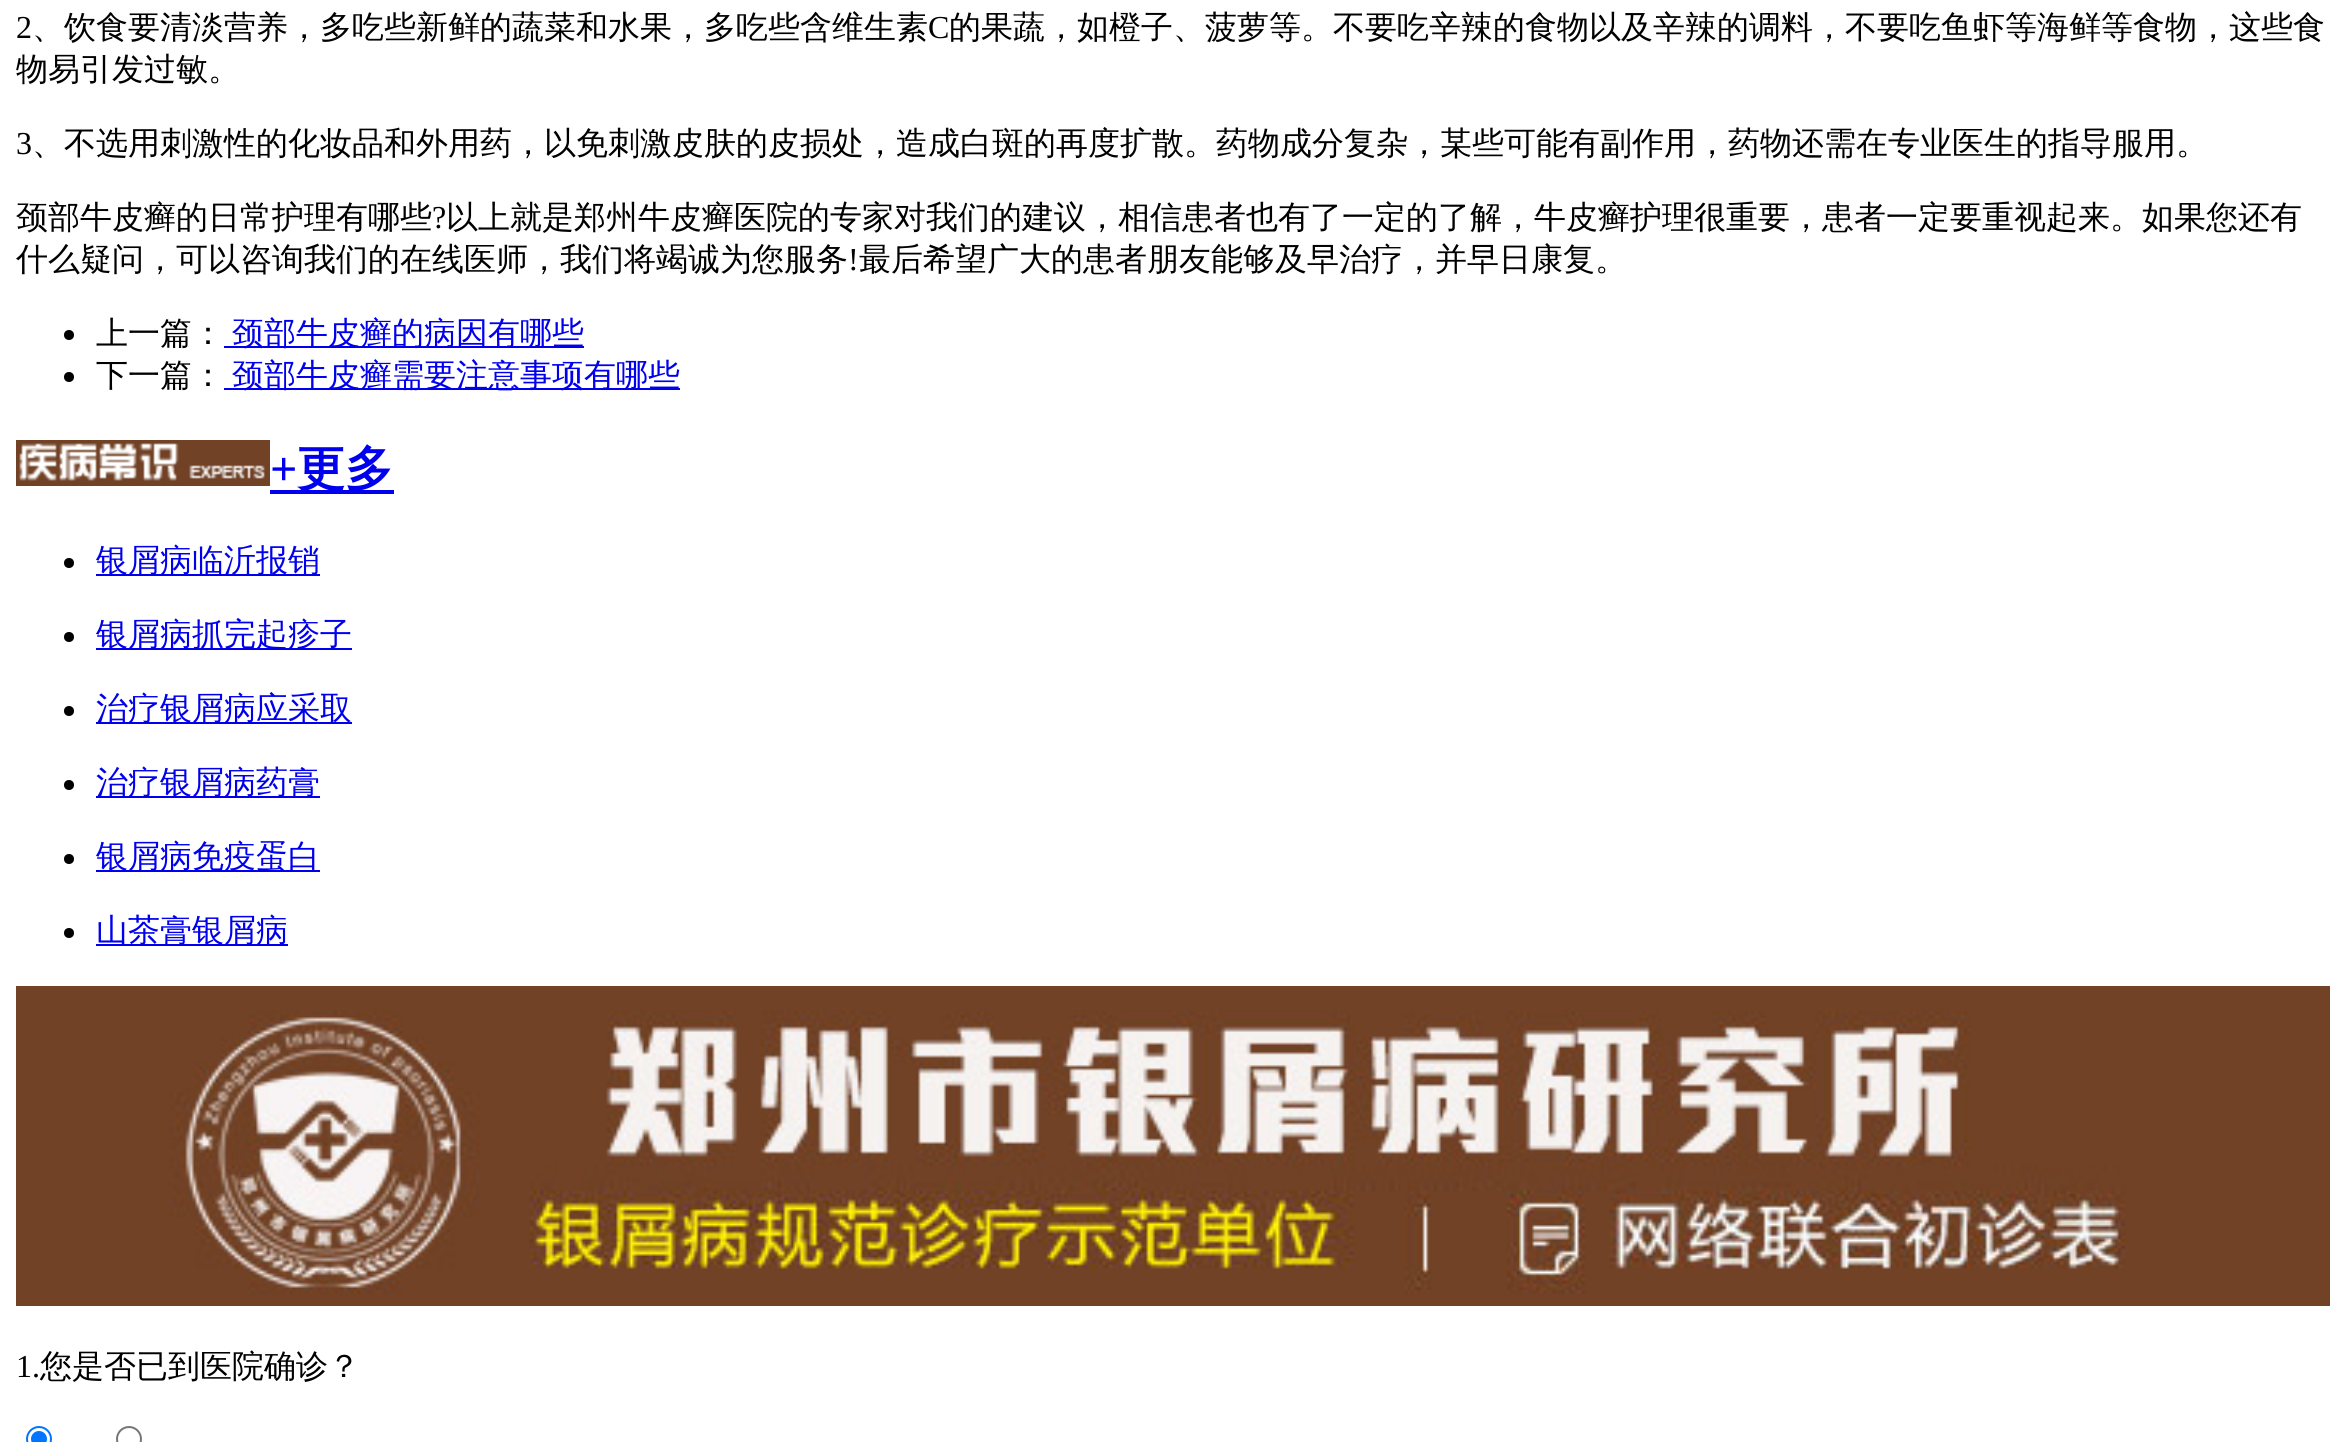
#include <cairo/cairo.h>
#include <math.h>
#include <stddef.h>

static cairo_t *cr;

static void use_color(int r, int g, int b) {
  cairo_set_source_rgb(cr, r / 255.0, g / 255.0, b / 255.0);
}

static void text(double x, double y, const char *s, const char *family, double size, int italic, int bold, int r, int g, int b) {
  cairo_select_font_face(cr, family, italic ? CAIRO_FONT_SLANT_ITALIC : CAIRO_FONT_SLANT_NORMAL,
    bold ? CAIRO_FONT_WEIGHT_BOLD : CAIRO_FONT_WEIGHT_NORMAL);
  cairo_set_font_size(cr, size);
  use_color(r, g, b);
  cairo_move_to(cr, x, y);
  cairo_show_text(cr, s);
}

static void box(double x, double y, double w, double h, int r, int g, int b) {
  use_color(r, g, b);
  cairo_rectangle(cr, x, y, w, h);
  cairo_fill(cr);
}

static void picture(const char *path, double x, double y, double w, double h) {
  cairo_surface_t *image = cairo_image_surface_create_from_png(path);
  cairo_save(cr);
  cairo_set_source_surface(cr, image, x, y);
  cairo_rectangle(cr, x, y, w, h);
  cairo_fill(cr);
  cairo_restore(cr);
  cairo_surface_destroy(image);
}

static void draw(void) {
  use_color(255, 255, 255);
  cairo_paint(cr);
  use_color(0, 0, 0);
  cairo_arc(cr, 69, 335, 5, 0, 2 * M_PI);
  cairo_fill(cr);
  box(224, 346, 360, 2, 0, 0, 238);
  use_color(0, 0, 0);
  cairo_arc(cr, 69, 377, 5, 0, 2 * M_PI);
  cairo_fill(cr);
  box(224, 388, 456, 2, 0, 0, 238);
  picture("img_01.png", 16, 440, 254, 46);
  box(270, 490, 124, 4, 0, 0, 238);
  use_color(0, 0, 0);
  cairo_arc(cr, 69, 563, 5, 0, 2 * M_PI);
  cairo_fill(cr);
  box(96, 574, 224, 2, 0, 0, 238);
  use_color(0, 0, 0);
  cairo_arc(cr, 69, 637, 5, 0, 2 * M_PI);
  cairo_fill(cr);
  box(96, 648, 256, 2, 0, 0, 238);
  use_color(0, 0, 0);
  cairo_arc(cr, 69, 711, 5, 0, 2 * M_PI);
  cairo_fill(cr);
  box(96, 722, 256, 2, 0, 0, 238);
  use_color(0, 0, 0);
  cairo_arc(cr, 69, 785, 5, 0, 2 * M_PI);
  cairo_fill(cr);
  box(96, 796, 224, 2, 0, 0, 238);
  use_color(0, 0, 0);
  cairo_arc(cr, 69, 859, 5, 0, 2 * M_PI);
  cairo_fill(cr);
  box(96, 870, 224, 2, 0, 0, 238);
  use_color(0, 0, 0);
  cairo_arc(cr, 69, 933, 5, 0, 2 * M_PI);
  cairo_fill(cr);
  box(96, 944, 192, 2, 0, 0, 238);
  picture("img_02.png", 16, 986, 2314, 320);
  cairo_arc(cr, 39, 1439, 12, 0, 2 * M_PI);
  use_color(0, 117, 255);
  cairo_stroke(cr);
  cairo_arc(cr, 39, 1439, 8, 0, 2 * M_PI);
  cairo_fill(cr);
  cairo_arc(cr, 129, 1439, 12, 0, 2 * M_PI);
  use_color(118, 118, 118);
  cairo_stroke(cr);
  text(16, 38, "2", "Liberation Serif", 32, 0, 0, 0, 0, 0);
  text(32, 38, "、饮食要清淡营养，多吃些新鲜的蔬菜和水果，多吃些含维生素", "WenQuanYi Zen Hei Medium", 32, 0, 0, 0, 0, 0);
  text(928, 38, "C", "Liberation Serif", 32, 0, 0, 0, 0, 0);
  text(949, 38, "的果蔬，如橙子、菠萝等。不要吃辛辣的食物以及辛辣的调料，不要吃鱼虾等海鲜等食物，这些食", "WenQuanYi Zen Hei Medium", 32, 0, 0, 0, 0, 0);
  text(16, 80, "物易引发过敏。", "WenQuanYi Zen Hei Medium", 32, 0, 0, 0, 0, 0);
  text(16, 154, "3", "Liberation Serif", 32, 0, 0, 0, 0, 0);
  text(32, 154, "、不选用刺激性的化妆品和外用药，以免刺激皮肤的皮损处，造成白斑的再度扩散。药物成分复杂，某些可能有副作用，药物还需在专业医生的指导服用。", "WenQuanYi Zen Hei Medium", 32, 0, 0, 0, 0, 0);
  text(16, 228, "颈部牛皮癣的日常护理有哪些", "WenQuanYi Zen Hei Medium", 32, 0, 0, 0, 0, 0);
  text(432, 228, "?", "Liberation Serif", 32, 0, 0, 0, 0, 0);
  text(446, 228, "以上就是郑州牛皮癣医院的专家对我们的建议，相信患者也有了一定的了解，牛皮癣护理很重要，患者一定要重视起来。如果您还有", "WenQuanYi Zen Hei Medium", 32, 0, 0, 0, 0, 0);
  text(16, 270, "什么疑问，可以咨询我们的在线医师，我们将竭诚为您服务", "WenQuanYi Zen Hei Medium", 32, 0, 0, 0, 0, 0);
  text(848, 270, "!", "Liberation Serif", 32, 0, 0, 0, 0, 0);
  text(859, 270, "最后希望广大的患者朋友能够及早治疗，并早日康复。", "WenQuanYi Zen Hei Medium", 32, 0, 0, 0, 0, 0);
  text(96, 344, "上一篇：", "WenQuanYi Zen Hei Medium", 32, 0, 0, 0, 0, 0);
  text(232, 344, "颈部牛皮癣的病因有哪些", "WenQuanYi Zen Hei Medium", 32, 0, 0, 0, 0, 238);
  text(96, 386, "下一篇：", "WenQuanYi Zen Hei Medium", 32, 0, 0, 0, 0, 0);
  text(232, 386, "颈部牛皮癣需要注意事项有哪些", "WenQuanYi Zen Hei Medium", 32, 0, 0, 0, 0, 238);
  text(270, 485, "+", "Liberation Serif", 48, 0, 1, 0, 0, 238);
  text(297, 485, "更多", "WenQuanYi Zen Hei", 48, 0, 1, 0, 0, 238);
  text(96, 571, "银屑病临沂报销", "WenQuanYi Zen Hei Medium", 32, 0, 0, 0, 0, 238);
  text(96, 645, "银屑病抓完起疹子", "WenQuanYi Zen Hei Medium", 32, 0, 0, 0, 0, 238);
  text(96, 719, "治疗银屑病应采取", "WenQuanYi Zen Hei Medium", 32, 0, 0, 0, 0, 238);
  text(96, 793, "治疗银屑病药膏", "WenQuanYi Zen Hei Medium", 32, 0, 0, 0, 0, 238);
  text(96, 867, "银屑病免疫蛋白", "WenQuanYi Zen Hei Medium", 32, 0, 0, 0, 0, 238);
  text(96, 941, "山茶膏银屑病", "WenQuanYi Zen Hei Medium", 32, 0, 0, 0, 0, 238);
  text(16, 1377, "1.", "Liberation Serif", 32, 0, 0, 0, 0, 0);
  text(40, 1377, "您是否已到医院确诊？", "WenQuanYi Zen Hei Medium", 32, 0, 0, 0, 0, 0);
}

int main(void) {
  cairo_surface_t *surface = cairo_image_surface_create(CAIRO_FORMAT_RGB24, 2346, 1442);
  cr = cairo_create(surface);
  cairo_font_options_t *options = cairo_font_options_create();
  cairo_font_options_set_hint_metrics(options, CAIRO_HINT_METRICS_OFF);
  cairo_font_options_set_hint_style(options, CAIRO_HINT_STYLE_NONE);
  cairo_set_font_options(cr, options);
  cairo_set_miter_limit(cr, 4);
  draw();
  cairo_surface_write_to_png(surface, "out.png");
  cairo_font_options_destroy(options);
  cairo_destroy(cr);
  cairo_surface_destroy(surface);
  return 0;
}
